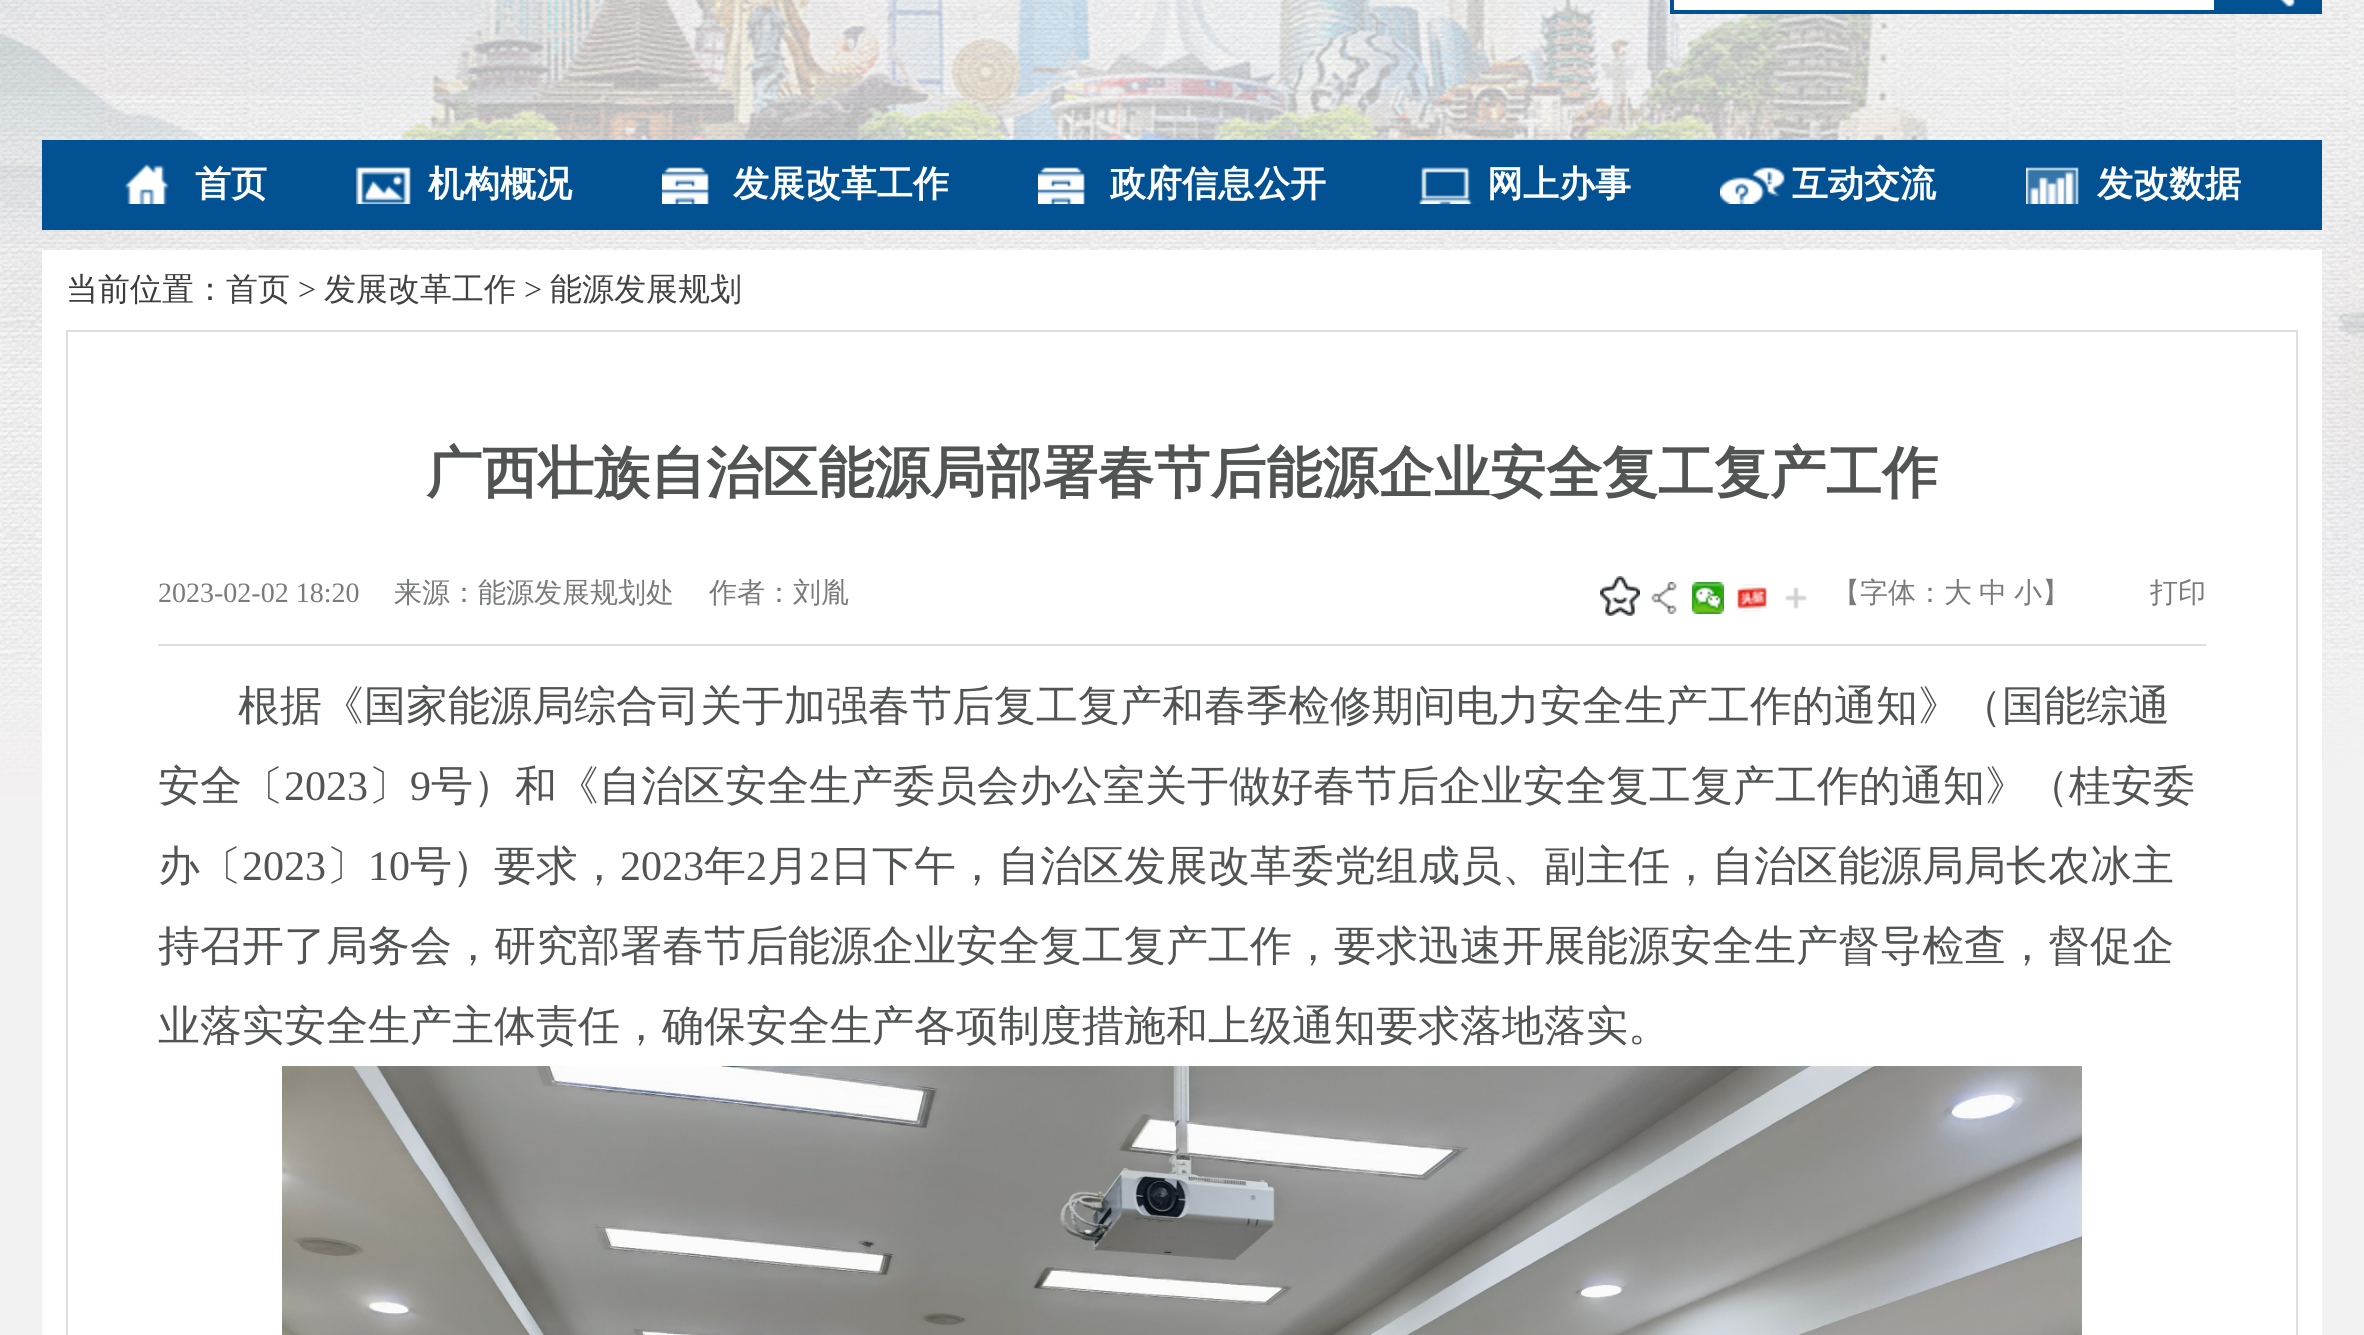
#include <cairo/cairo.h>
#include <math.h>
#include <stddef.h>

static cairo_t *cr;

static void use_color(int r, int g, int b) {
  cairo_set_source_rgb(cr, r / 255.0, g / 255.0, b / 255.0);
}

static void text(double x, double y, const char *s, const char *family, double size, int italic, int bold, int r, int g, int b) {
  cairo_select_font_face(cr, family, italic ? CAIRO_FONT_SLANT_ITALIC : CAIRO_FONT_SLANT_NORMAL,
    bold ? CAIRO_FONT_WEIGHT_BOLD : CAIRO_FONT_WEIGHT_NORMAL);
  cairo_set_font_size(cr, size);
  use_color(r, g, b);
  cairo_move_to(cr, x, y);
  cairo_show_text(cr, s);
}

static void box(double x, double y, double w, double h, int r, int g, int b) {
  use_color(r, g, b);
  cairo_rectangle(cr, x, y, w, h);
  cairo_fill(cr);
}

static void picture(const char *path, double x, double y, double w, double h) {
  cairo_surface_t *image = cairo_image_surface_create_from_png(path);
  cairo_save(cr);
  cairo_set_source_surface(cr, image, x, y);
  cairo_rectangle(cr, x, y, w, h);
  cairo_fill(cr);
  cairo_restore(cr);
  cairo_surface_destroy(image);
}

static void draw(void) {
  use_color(242, 242, 242);
  cairo_paint(cr);
  picture("img_01.png", 0, 0, 2364, 797);
  cairo_rectangle(cr, 1672, -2, 648, 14);
  use_color(2, 82, 147);
  cairo_set_line_width(cr, 4);
  cairo_stroke(cr);
  box(1674, 0, 540, 10, 255, 255, 255);
  picture("img_02.png", 2214, 0, 104, 10);
  box(42, 140, 2280, 90, 2, 82, 147);
  picture("img_03.png", 124, 164, 45, 40);
  picture("img_04.png", 356, 166, 55, 38);
  picture("img_05.png", 662, 167, 47, 37);
  picture("img_05.png", 1038, 167, 47, 37);
  picture("img_06.png", 1418, 167, 55, 37);
  picture("img_07.png", 1720, 167, 65, 37);
  picture("img_08.png", 2026, 167, 53, 37);
  box(42, 250, 2280, 1085, 255, 255, 255);
  cairo_rectangle(cr, 67, 331, 2230, 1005);
  use_color(223, 222, 222);
  cairo_set_line_width(cr, 2);
  cairo_stroke(cr);
  box(158, 644, 2048, 2, 223, 222, 222);
  picture("img_09.png", 1600, 576, 40, 40);
  picture("img_10.png", 1651, 582, 26, 32);
  picture("img_11.png", 1692, 582, 32, 32);
  picture("img_12.png", 1737, 584, 30, 28);
  picture("img_13.png", 1785, 587, 22, 22);
  picture("img_14.png", 282, 1066, 1800, 269);
  text(195, 196, "首页", "WenQuanYi Zen Hei", 36, 0, 1, 255, 255, 255);
  text(428, 196, "机构概况", "WenQuanYi Zen Hei", 36, 0, 1, 255, 255, 255);
  text(733, 196, "发展改革工作", "WenQuanYi Zen Hei", 36, 0, 1, 255, 255, 255);
  text(1110, 196, "政府信息公开", "WenQuanYi Zen Hei", 36, 0, 1, 255, 255, 255);
  text(1487, 196, "网上办事", "WenQuanYi Zen Hei", 36, 0, 1, 255, 255, 255);
  text(1792, 196, "互动交流", "WenQuanYi Zen Hei", 36, 0, 1, 255, 255, 255);
  text(2097, 196, "发改数据", "WenQuanYi Zen Hei", 36, 0, 1, 255, 255, 255);
  text(66, 300, "当前位置：", "WenQuanYi Zen Hei Medium", 32, 0, 0, 59, 59, 59);
  text(226, 300, "首页", "WenQuanYi Zen Hei Medium", 32, 0, 0, 67, 66, 66);
  text(298, 300, ">", "Liberation Serif", 32, 0, 0, 59, 59, 59);
  text(324, 300, "发展改革工作", "WenQuanYi Zen Hei Medium", 32, 0, 0, 67, 66, 66);
  text(524, 300, ">", "Liberation Serif", 32, 0, 0, 59, 59, 59);
  text(550, 300, "能源发展规划", "WenQuanYi Zen Hei Medium", 32, 0, 0, 67, 66, 66);
  text(426, 492, "广西壮族自治区能源局部署春节后能源企业安全复工复产工作", "WenQuanYi Zen Hei", 56, 0, 1, 82, 83, 83);
  text(158, 602, "2023-02-02 18:20", "Liberation Serif", 28, 0, 0, 121, 122, 122);
  text(394, 602, "来源：能源发展规划处", "WenQuanYi Zen Hei Medium", 28, 0, 0, 121, 122, 122);
  text(709, 602, "作者：刘胤", "WenQuanYi Zen Hei Medium", 28, 0, 0, 121, 122, 122);
  text(1832, 602, "【字体：大", "WenQuanYi Zen Hei Medium", 28, 0, 0, 121, 122, 122);
  text(1979, 602, "中", "WenQuanYi Zen Hei Medium", 28, 0, 0, 121, 122, 122);
  text(2014, 602, "小】", "WenQuanYi Zen Hei Medium", 28, 0, 0, 121, 122, 122);
  text(2150, 602, "打印", "WenQuanYi Zen Hei Medium", 28, 0, 0, 121, 122, 122);
  text(238, 720, "根据《国家能源局综合司关于加强春节后复工复产和春季检修期间电力安全生产工作的通知》（国能综通", "WenQuanYi Zen Hei Medium", 42, 0, 0, 82, 83, 83);
  text(158, 800, "安全〔", "WenQuanYi Zen Hei Medium", 42, 0, 0, 82, 83, 83);
  text(284, 800, "2023", "Liberation Serif", 42, 0, 0, 82, 83, 83);
  text(368, 800, "〕", "WenQuanYi Zen Hei Medium", 42, 0, 0, 82, 83, 83);
  text(410, 800, "9", "Liberation Serif", 42, 0, 0, 82, 83, 83);
  text(431, 800, "号）和《自治区安全生产委员会办公室关于做好春节后企业安全复工复产工作的通知》（桂安委", "WenQuanYi Zen Hei Medium", 42, 0, 0, 82, 83, 83);
  text(158, 880, "办〔", "WenQuanYi Zen Hei Medium", 42, 0, 0, 82, 83, 83);
  text(242, 880, "2023", "Liberation Serif", 42, 0, 0, 82, 83, 83);
  text(326, 880, "〕", "WenQuanYi Zen Hei Medium", 42, 0, 0, 82, 83, 83);
  text(368, 880, "10", "Liberation Serif", 42, 0, 0, 82, 83, 83);
  text(410, 880, "号）要求，", "WenQuanYi Zen Hei Medium", 42, 0, 0, 82, 83, 83);
  text(620, 880, "2023", "Liberation Serif", 42, 0, 0, 82, 83, 83);
  text(704, 880, "年", "WenQuanYi Zen Hei Medium", 42, 0, 0, 82, 83, 83);
  text(746, 880, "2", "Liberation Serif", 42, 0, 0, 82, 83, 83);
  text(767, 880, "月", "WenQuanYi Zen Hei Medium", 42, 0, 0, 82, 83, 83);
  text(809, 880, "2", "Liberation Serif", 42, 0, 0, 82, 83, 83);
  text(830, 880, "日下午，自治区发展改革委党组成员、副主任，自治区能源局局长农冰主", "WenQuanYi Zen Hei Medium", 42, 0, 0, 82, 83, 83);
  text(158, 960, "持召开了局务会，研究部署春节后能源企业安全复工复产工作，要求迅速开展能源安全生产督导检查，督促企", "WenQuanYi Zen Hei Medium", 42, 0, 0, 82, 83, 83);
  text(158, 1040, "业落实安全生产主体责任，确保安全生产各项制度措施和上级通知要求落地落实。", "WenQuanYi Zen Hei Medium", 42, 0, 0, 82, 83, 83);
}

int main(void) {
  cairo_surface_t *surface = cairo_image_surface_create(CAIRO_FORMAT_RGB24, 2364, 1335);
  cr = cairo_create(surface);
  cairo_font_options_t *options = cairo_font_options_create();
  cairo_font_options_set_hint_metrics(options, CAIRO_HINT_METRICS_OFF);
  cairo_font_options_set_hint_style(options, CAIRO_HINT_STYLE_NONE);
  cairo_set_font_options(cr, options);
  cairo_set_miter_limit(cr, 4);
  draw();
  cairo_surface_write_to_png(surface, "out.png");
  cairo_font_options_destroy(options);
  cairo_destroy(cr);
  cairo_surface_destroy(surface);
  return 0;
}
